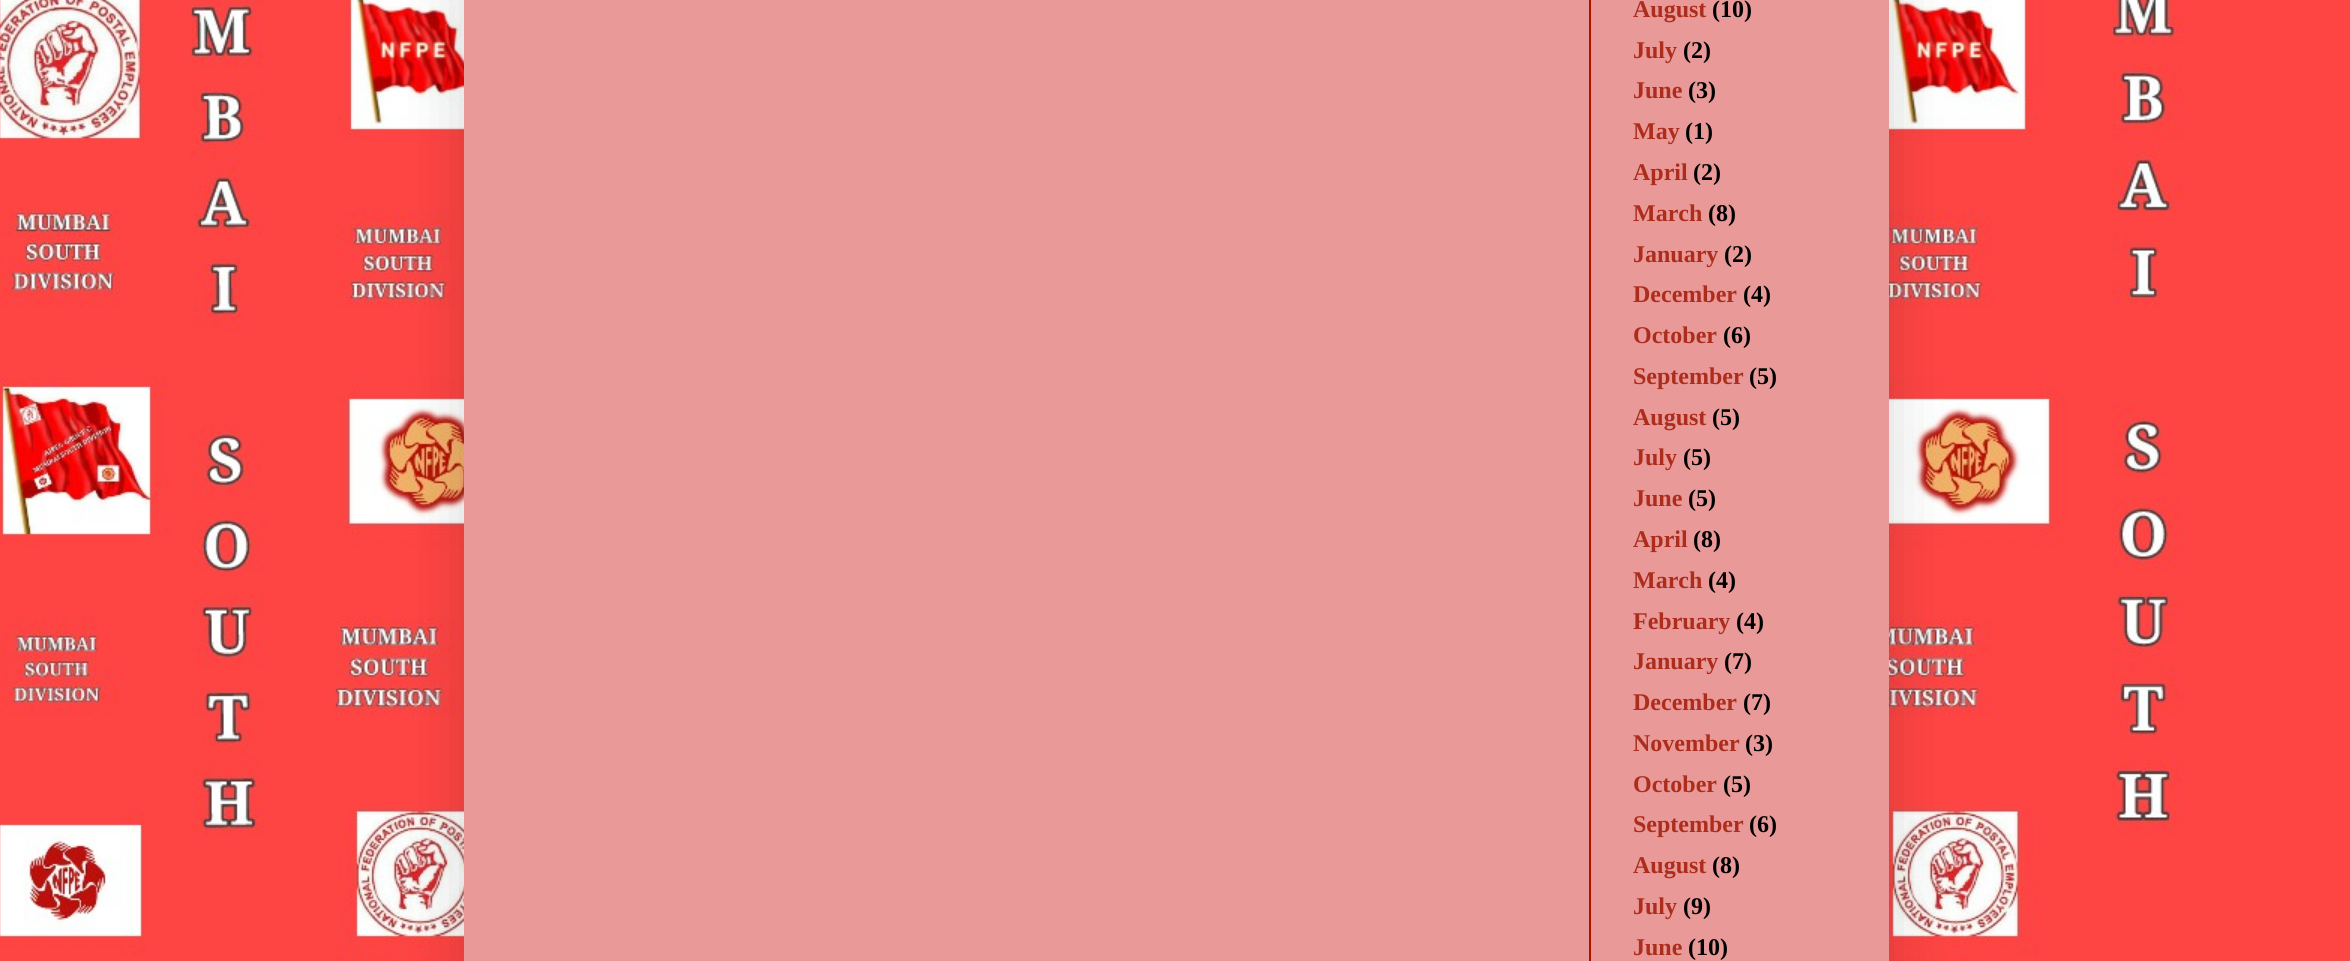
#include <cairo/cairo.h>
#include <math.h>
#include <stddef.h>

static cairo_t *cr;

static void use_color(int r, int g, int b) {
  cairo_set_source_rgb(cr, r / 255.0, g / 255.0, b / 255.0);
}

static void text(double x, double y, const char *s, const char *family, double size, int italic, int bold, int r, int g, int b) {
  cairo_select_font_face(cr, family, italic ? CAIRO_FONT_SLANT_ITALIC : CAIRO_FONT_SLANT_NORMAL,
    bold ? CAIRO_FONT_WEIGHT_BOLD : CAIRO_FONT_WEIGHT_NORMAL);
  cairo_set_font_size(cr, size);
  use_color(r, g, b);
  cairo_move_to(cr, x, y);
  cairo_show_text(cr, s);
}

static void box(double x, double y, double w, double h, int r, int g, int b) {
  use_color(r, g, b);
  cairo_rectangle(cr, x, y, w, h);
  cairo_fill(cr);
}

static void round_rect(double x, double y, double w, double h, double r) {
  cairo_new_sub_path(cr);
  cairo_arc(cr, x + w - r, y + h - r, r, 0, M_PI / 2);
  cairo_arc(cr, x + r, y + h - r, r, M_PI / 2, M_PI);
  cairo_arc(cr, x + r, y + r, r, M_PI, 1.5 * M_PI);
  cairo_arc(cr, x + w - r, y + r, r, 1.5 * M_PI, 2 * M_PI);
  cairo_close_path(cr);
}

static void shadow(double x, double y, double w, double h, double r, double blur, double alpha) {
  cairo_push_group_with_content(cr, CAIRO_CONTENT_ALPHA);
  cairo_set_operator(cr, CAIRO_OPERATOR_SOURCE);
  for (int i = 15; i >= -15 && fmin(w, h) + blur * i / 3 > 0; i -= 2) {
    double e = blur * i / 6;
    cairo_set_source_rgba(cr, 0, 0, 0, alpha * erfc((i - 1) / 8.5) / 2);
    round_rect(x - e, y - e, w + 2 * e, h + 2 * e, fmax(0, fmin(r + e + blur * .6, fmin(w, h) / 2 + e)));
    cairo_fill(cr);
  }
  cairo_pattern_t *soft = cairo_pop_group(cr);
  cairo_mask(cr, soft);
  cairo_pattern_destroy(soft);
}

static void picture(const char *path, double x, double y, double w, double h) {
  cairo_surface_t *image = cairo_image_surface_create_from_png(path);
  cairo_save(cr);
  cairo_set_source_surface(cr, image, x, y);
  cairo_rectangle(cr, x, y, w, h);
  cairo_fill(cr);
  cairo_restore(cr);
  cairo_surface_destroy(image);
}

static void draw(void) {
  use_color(255, 255, 255);
  cairo_paint(cr);
  picture("img_01.png", 0, 0, 2350, 961);
  use_color(0, 0, 0);
  shadow(464, -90, 1425, 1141, 0, 30, 0.15);
  box(464, 0, 1425, 961, 234, 153, 153);
  box(1589, 0, 2, 961, 172, 20, 0);
  text(1633, 17, "August", "Liberation Serif", 24, 0, 1, 172, 45, 28);
  text(1712, 17, "(10)", "Liberation Serif", 24, 0, 1, 0, 0, 0);
  text(1633, 58, "July", "Liberation Serif", 24, 0, 1, 172, 45, 28);
  text(1683, 58, "(2)", "Liberation Serif", 24, 0, 1, 0, 0, 0);
  text(1633, 98, "June", "Liberation Serif", 24, 0, 1, 172, 45, 28);
  text(1688, 98, "(3)", "Liberation Serif", 24, 0, 1, 0, 0, 0);
  text(1633, 139, "May", "Liberation Serif", 24, 0, 1, 172, 45, 28);
  text(1685, 139, "(1)", "Liberation Serif", 24, 0, 1, 0, 0, 0);
  text(1633, 180, "April", "Liberation Serif", 24, 0, 1, 172, 45, 28);
  text(1693, 180, "(2)", "Liberation Serif", 24, 0, 1, 0, 0, 0);
  text(1633, 221, "March", "Liberation Serif", 24, 0, 1, 172, 45, 28);
  text(1708, 221, "(8)", "Liberation Serif", 24, 0, 1, 0, 0, 0);
  text(1633, 262, "January", "Liberation Serif", 24, 0, 1, 172, 45, 28);
  text(1724, 262, "(2)", "Liberation Serif", 24, 0, 1, 0, 0, 0);
  text(1633, 302, "December", "Liberation Serif", 24, 0, 1, 172, 45, 28);
  text(1743, 302, "(4)", "Liberation Serif", 24, 0, 1, 0, 0, 0);
  text(1633, 343, "October", "Liberation Serif", 24, 0, 1, 172, 45, 28);
  text(1723, 343, "(6)", "Liberation Serif", 24, 0, 1, 0, 0, 0);
  text(1633, 384, "September", "Liberation Serif", 24, 0, 1, 172, 45, 28);
  text(1749, 384, "(5)", "Liberation Serif", 24, 0, 1, 0, 0, 0);
  text(1633, 425, "August", "Liberation Serif", 24, 0, 1, 172, 45, 28);
  text(1712, 425, "(5)", "Liberation Serif", 24, 0, 1, 0, 0, 0);
  text(1633, 465, "July", "Liberation Serif", 24, 0, 1, 172, 45, 28);
  text(1683, 465, "(5)", "Liberation Serif", 24, 0, 1, 0, 0, 0);
  text(1633, 506, "June", "Liberation Serif", 24, 0, 1, 172, 45, 28);
  text(1688, 506, "(5)", "Liberation Serif", 24, 0, 1, 0, 0, 0);
  text(1633, 547, "April", "Liberation Serif", 24, 0, 1, 172, 45, 28);
  text(1693, 547, "(8)", "Liberation Serif", 24, 0, 1, 0, 0, 0);
  text(1633, 588, "March", "Liberation Serif", 24, 0, 1, 172, 45, 28);
  text(1708, 588, "(4)", "Liberation Serif", 24, 0, 1, 0, 0, 0);
  text(1633, 629, "February", "Liberation Serif", 24, 0, 1, 172, 45, 28);
  text(1736, 629, "(4)", "Liberation Serif", 24, 0, 1, 0, 0, 0);
  text(1633, 669, "January", "Liberation Serif", 24, 0, 1, 172, 45, 28);
  text(1724, 669, "(7)", "Liberation Serif", 24, 0, 1, 0, 0, 0);
  text(1633, 710, "December", "Liberation Serif", 24, 0, 1, 172, 45, 28);
  text(1743, 710, "(7)", "Liberation Serif", 24, 0, 1, 0, 0, 0);
  text(1633, 751, "November", "Liberation Serif", 24, 0, 1, 172, 45, 28);
  text(1745, 751, "(3)", "Liberation Serif", 24, 0, 1, 0, 0, 0);
  text(1633, 792, "October", "Liberation Serif", 24, 0, 1, 172, 45, 28);
  text(1723, 792, "(5)", "Liberation Serif", 24, 0, 1, 0, 0, 0);
  text(1633, 832, "September", "Liberation Serif", 24, 0, 1, 172, 45, 28);
  text(1749, 832, "(6)", "Liberation Serif", 24, 0, 1, 0, 0, 0);
  text(1633, 873, "August", "Liberation Serif", 24, 0, 1, 172, 45, 28);
  text(1712, 873, "(8)", "Liberation Serif", 24, 0, 1, 0, 0, 0);
  text(1633, 914, "July", "Liberation Serif", 24, 0, 1, 172, 45, 28);
  text(1683, 914, "(9)", "Liberation Serif", 24, 0, 1, 0, 0, 0);
  text(1633, 955, "June", "Liberation Serif", 24, 0, 1, 172, 45, 28);
  text(1688, 955, "(10)", "Liberation Serif", 24, 0, 1, 0, 0, 0);
}

int main(void) {
  cairo_surface_t *surface = cairo_image_surface_create(CAIRO_FORMAT_RGB24, 2350, 961);
  cr = cairo_create(surface);
  cairo_font_options_t *options = cairo_font_options_create();
  cairo_font_options_set_hint_metrics(options, CAIRO_HINT_METRICS_OFF);
  cairo_font_options_set_hint_style(options, CAIRO_HINT_STYLE_NONE);
  cairo_set_font_options(cr, options);
  cairo_set_miter_limit(cr, 4);
  draw();
  cairo_surface_write_to_png(surface, "out.png");
  cairo_font_options_destroy(options);
  cairo_destroy(cr);
  cairo_surface_destroy(surface);
  return 0;
}
